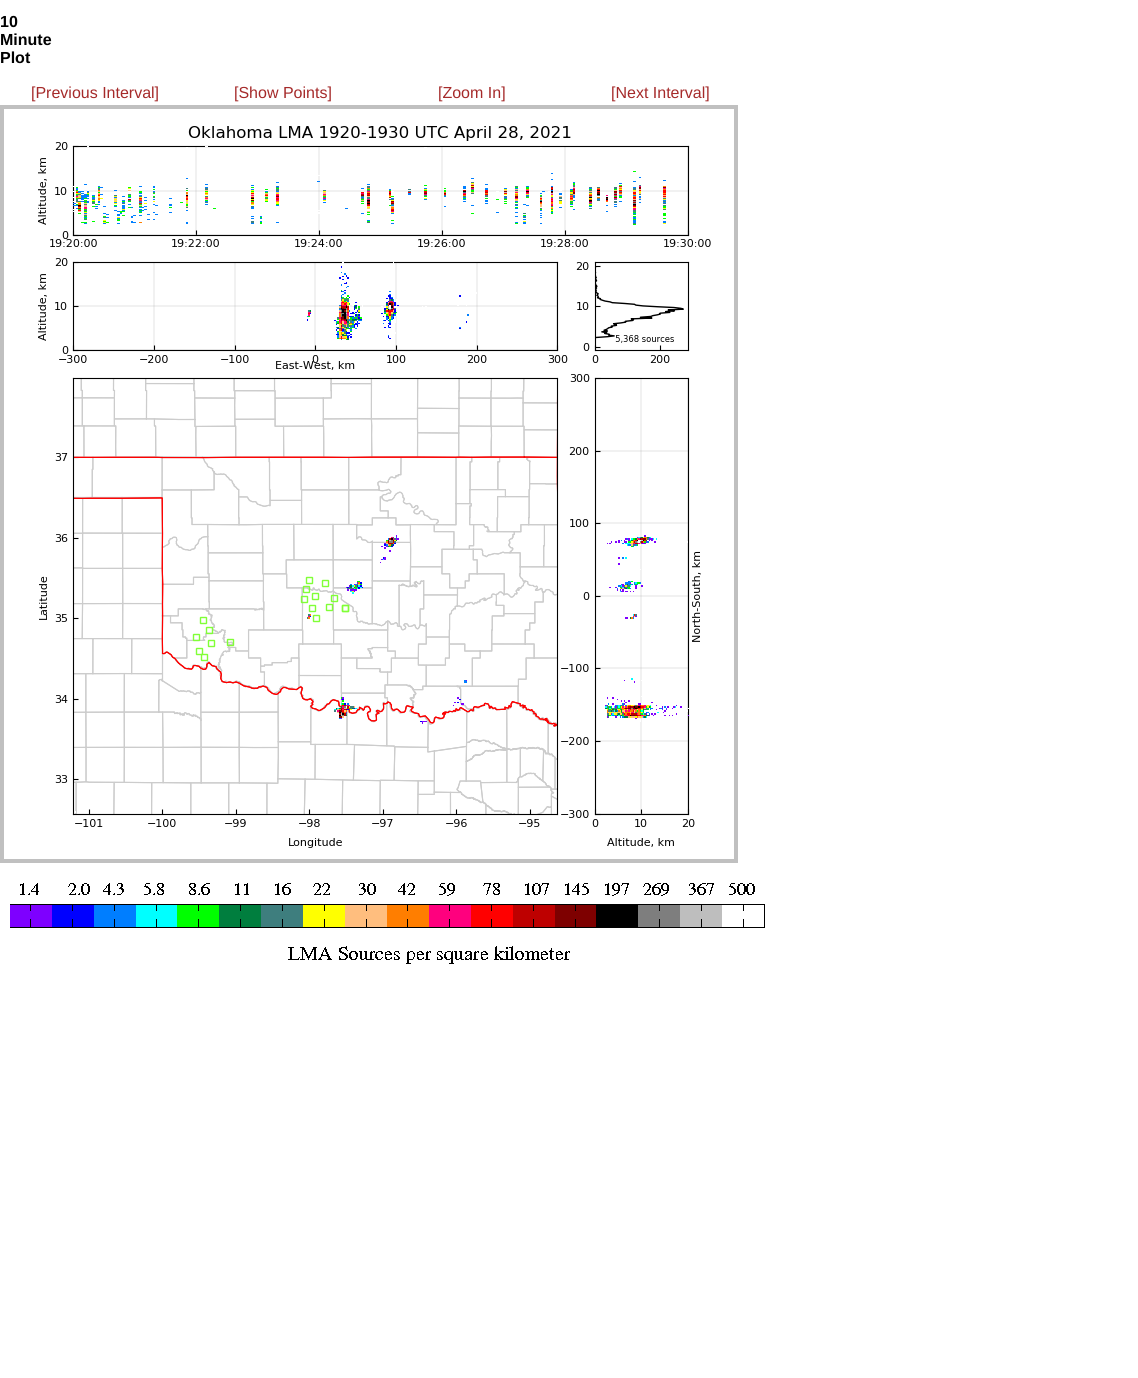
#include <cairo/cairo.h>
#include <math.h>
#include <stddef.h>

static cairo_t *cr;

static void use_color(int r, int g, int b) {
  cairo_set_source_rgb(cr, r / 255.0, g / 255.0, b / 255.0);
}

static void text(double x, double y, const char *s, const char *family, double size, int italic, int bold, int r, int g, int b) {
  cairo_select_font_face(cr, family, italic ? CAIRO_FONT_SLANT_ITALIC : CAIRO_FONT_SLANT_NORMAL,
    bold ? CAIRO_FONT_WEIGHT_BOLD : CAIRO_FONT_WEIGHT_NORMAL);
  cairo_set_font_size(cr, size);
  use_color(r, g, b);
  cairo_move_to(cr, x, y);
  cairo_show_text(cr, s);
}

static void picture(const char *path, double x, double y, double w, double h) {
  cairo_surface_t *image = cairo_image_surface_create_from_png(path);
  cairo_save(cr);
  cairo_set_source_surface(cr, image, x, y);
  cairo_rectangle(cr, x, y, w, h);
  cairo_fill(cr);
  cairo_restore(cr);
  cairo_surface_destroy(image);
}

static void draw(void) {
  use_color(255, 255, 255);
  cairo_paint(cr);
  picture("img_01.png", 0, 105, 738, 758);
  picture("img_02.png", 10, 883, 755, 81);
  text(0, 27, "10", "Liberation Sans", 16, 0, 1, 0, 0, 0);
  text(0, 45, "Minute", "Liberation Sans", 16, 0, 1, 0, 0, 0);
  text(0, 63, "Plot", "Liberation Sans", 16, 0, 1, 0, 0, 0);
  text(31, 98, "[Previous Interval]", "Liberation Sans", 16, 0, 0, 165, 42, 42);
  text(234, 98, "[Show Points]", "Liberation Sans", 16, 0, 0, 165, 42, 42);
  text(438, 98, "[Zoom In]", "Liberation Sans", 16, 0, 0, 165, 42, 42);
  text(611, 98, "[Next Interval]", "Liberation Sans", 16, 0, 0, 165, 42, 42);
}

int main(void) {
  cairo_surface_t *surface = cairo_image_surface_create(CAIRO_FORMAT_RGB24, 1138, 1378);
  cr = cairo_create(surface);
  cairo_font_options_t *options = cairo_font_options_create();
  cairo_font_options_set_hint_metrics(options, CAIRO_HINT_METRICS_OFF);
  cairo_font_options_set_hint_style(options, CAIRO_HINT_STYLE_NONE);
  cairo_set_font_options(cr, options);
  cairo_set_miter_limit(cr, 4);
  draw();
  cairo_surface_write_to_png(surface, "out.png");
  cairo_font_options_destroy(options);
  cairo_destroy(cr);
  cairo_surface_destroy(surface);
  return 0;
}
